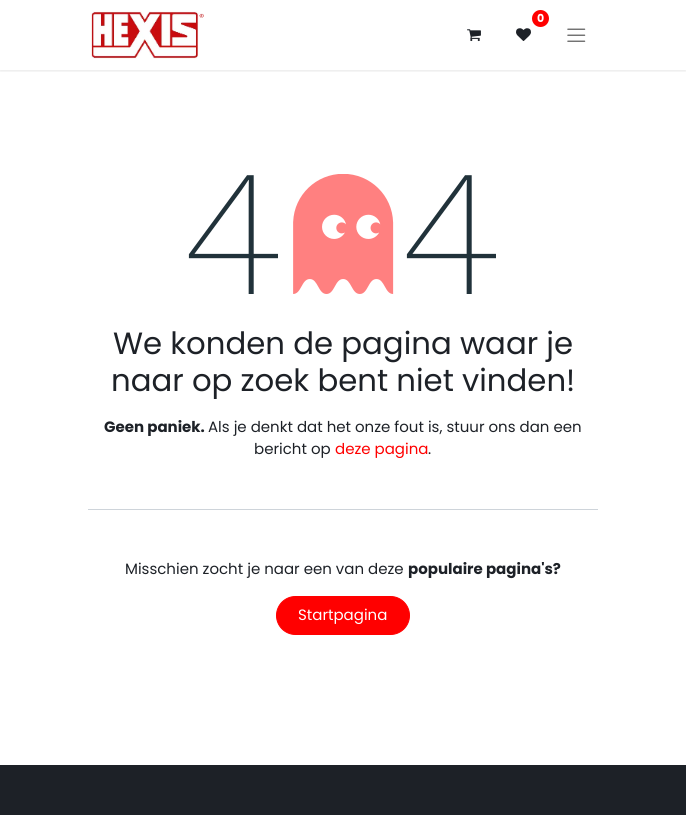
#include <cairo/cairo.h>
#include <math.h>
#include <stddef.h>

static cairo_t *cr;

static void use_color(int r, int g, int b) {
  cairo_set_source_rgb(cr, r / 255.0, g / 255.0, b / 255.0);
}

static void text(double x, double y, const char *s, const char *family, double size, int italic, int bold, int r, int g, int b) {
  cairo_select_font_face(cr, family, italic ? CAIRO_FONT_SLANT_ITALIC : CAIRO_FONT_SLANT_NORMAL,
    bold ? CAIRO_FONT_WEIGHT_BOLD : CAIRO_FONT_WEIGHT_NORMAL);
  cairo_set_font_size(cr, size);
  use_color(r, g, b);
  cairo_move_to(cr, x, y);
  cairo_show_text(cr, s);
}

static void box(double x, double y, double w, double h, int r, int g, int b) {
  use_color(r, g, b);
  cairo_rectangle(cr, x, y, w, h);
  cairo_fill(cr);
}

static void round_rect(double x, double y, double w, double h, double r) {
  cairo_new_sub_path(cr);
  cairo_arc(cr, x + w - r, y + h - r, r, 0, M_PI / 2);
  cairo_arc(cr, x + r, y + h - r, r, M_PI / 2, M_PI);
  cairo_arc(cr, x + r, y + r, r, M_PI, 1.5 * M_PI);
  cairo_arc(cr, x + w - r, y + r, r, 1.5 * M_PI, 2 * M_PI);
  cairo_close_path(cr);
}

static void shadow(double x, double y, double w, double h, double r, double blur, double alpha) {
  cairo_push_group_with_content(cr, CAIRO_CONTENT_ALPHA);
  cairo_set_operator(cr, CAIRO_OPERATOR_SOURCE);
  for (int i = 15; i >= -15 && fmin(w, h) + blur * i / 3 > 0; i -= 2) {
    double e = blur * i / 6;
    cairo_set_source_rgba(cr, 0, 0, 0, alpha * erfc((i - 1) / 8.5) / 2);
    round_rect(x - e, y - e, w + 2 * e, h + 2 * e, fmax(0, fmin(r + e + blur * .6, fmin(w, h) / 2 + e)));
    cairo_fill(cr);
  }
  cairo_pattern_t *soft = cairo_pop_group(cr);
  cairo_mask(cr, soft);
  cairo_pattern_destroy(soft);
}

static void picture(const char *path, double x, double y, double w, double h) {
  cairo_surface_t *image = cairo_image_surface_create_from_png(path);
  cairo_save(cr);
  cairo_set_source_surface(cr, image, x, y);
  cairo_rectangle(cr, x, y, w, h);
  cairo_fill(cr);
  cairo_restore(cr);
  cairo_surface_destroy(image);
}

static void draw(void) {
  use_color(255, 255, 255);
  cairo_paint(cr);
  cairo_save(cr);
  cairo_rectangle(cr, 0, 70, 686, 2);
  cairo_clip(cr);
  use_color(0, 0, 0);
  shadow(0, 1, 686, 70, 0, 1.5, 0.1);
  cairo_restore(cr);
  picture("img_01.png", 91, 11, 113, 48);
  use_color(255, 0, 0);
  cairo_arc(cr, 540.5, 18.5, 8.5, 0, 2 * M_PI);
  cairo_fill(cr);
  picture("img_02.png", 516, 28, 15, 13);
  picture("img_03.png", 467, 29, 14, 13);
  picture("img_04.png", 567, 28, 19, 14);
  picture("img_05.png", 188, 174, 308, 120);
  box(88, 509, 510, 1, 206, 212, 218);
  use_color(255, 0, 0);
  round_rect(276.5, 596.5, 133, 38, 19);
  cairo_fill_preserve(cr);
  cairo_set_line_width(cr, 1);
  cairo_stroke(cr);
  box(0, 765, 686, 50, 29, 33, 39);
  text(537, 22, "0", "Poppins", 11, 0, 1, 255, 255, 255);
  text(113, 354, "We konden de pagina waar je", "Poppins", 30.75, 0, 0, 29, 33, 39);
  text(111, 391, "naar op zoek bent niet vinden!", "Poppins", 30.75, 0, 0, 29, 33, 39);
  text(104, 432, "Geen paniek.", "Poppins", 15, 0, 1, 29, 33, 39);
  text(208, 432, "Als je denkt dat het onze fout is, stuur ons dan een", "Poppins", 15, 0, 0, 29, 33, 39);
  text(254, 454, "bericht op", "Poppins", 15, 0, 0, 29, 33, 39);
  text(335, 454, "deze pagina", "Poppins", 15, 0, 0, 255, 0, 0);
  text(428, 454, ".", "Poppins", 15, 0, 0, 29, 33, 39);
  text(125, 574, "Misschien zocht je naar een van deze", "Poppins", 15, 0, 0, 29, 33, 39);
  text(408, 574, "populaire pagina's?", "Poppins", 15, 0, 1, 29, 33, 39);
  text(298, 620, "Startpagina", "Poppins", 15, 0, 0, 255, 255, 255);
}

int main(void) {
  cairo_surface_t *surface = cairo_image_surface_create(CAIRO_FORMAT_RGB24, 686, 815);
  cr = cairo_create(surface);
  cairo_font_options_t *options = cairo_font_options_create();
  cairo_font_options_set_hint_metrics(options, CAIRO_HINT_METRICS_OFF);
  cairo_font_options_set_hint_style(options, CAIRO_HINT_STYLE_NONE);
  cairo_set_font_options(cr, options);
  cairo_set_miter_limit(cr, 4);
  draw();
  cairo_surface_write_to_png(surface, "out.png");
  cairo_font_options_destroy(options);
  cairo_destroy(cr);
  cairo_surface_destroy(surface);
  return 0;
}
